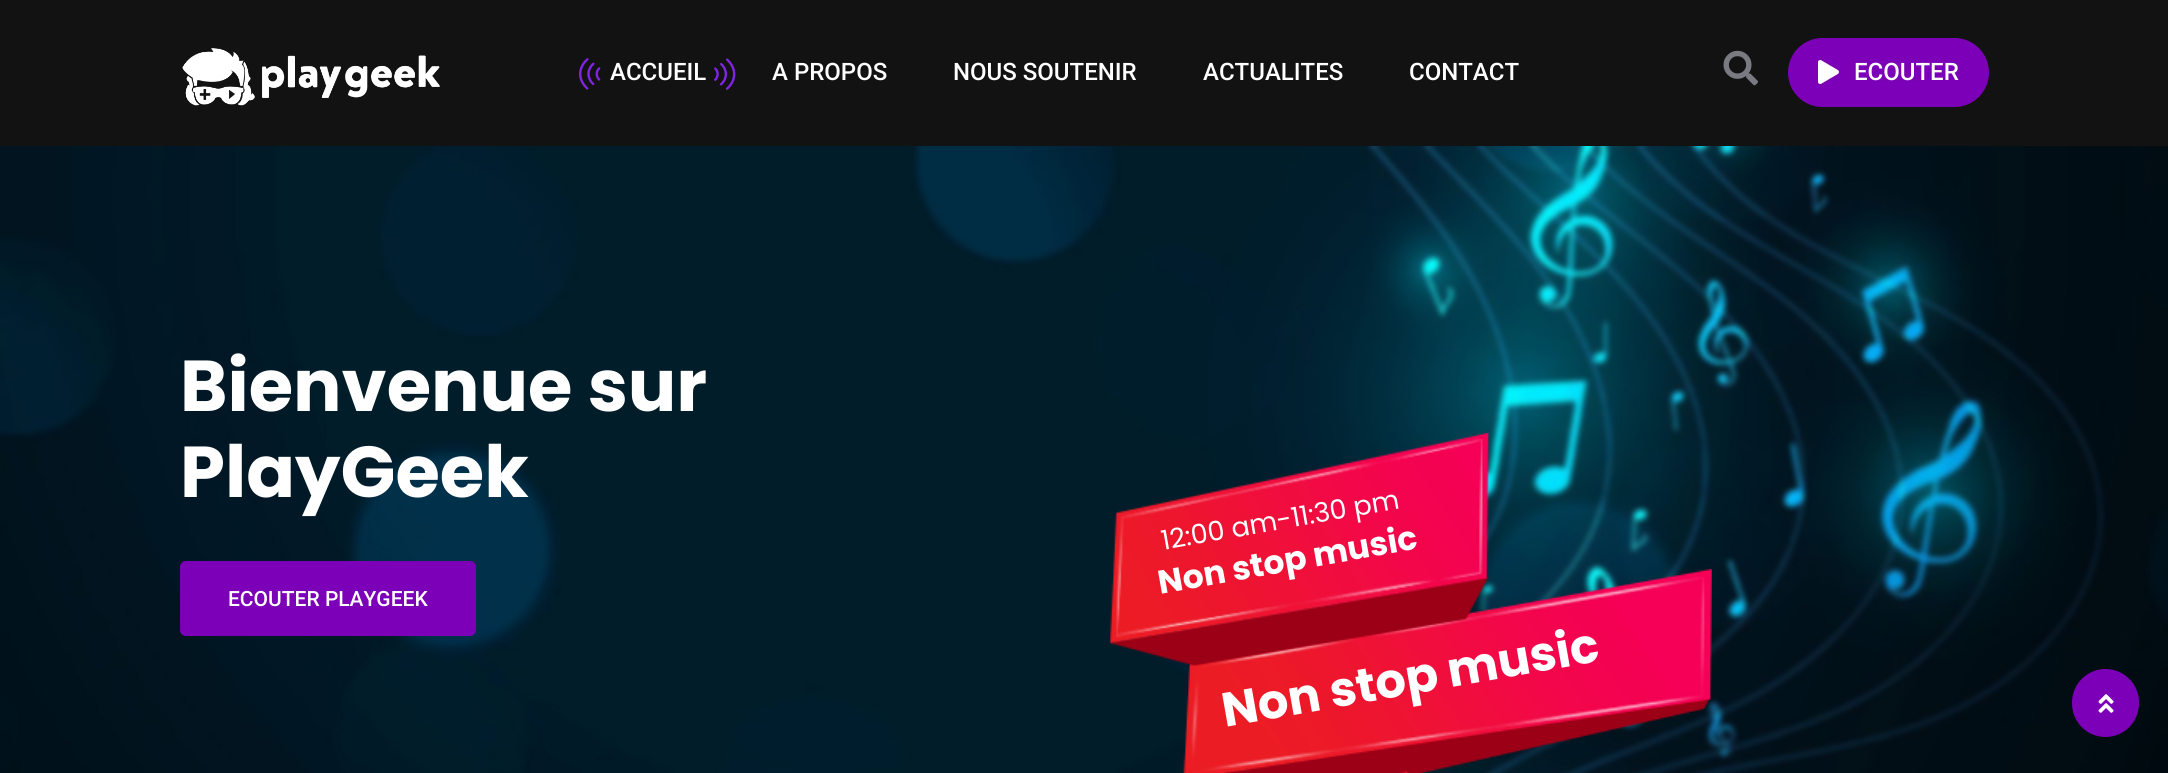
#include <cairo/cairo.h>
#include <math.h>
#include <stddef.h>

static cairo_t *cr;

static void use_color(int r, int g, int b) {
  cairo_set_source_rgb(cr, r / 255.0, g / 255.0, b / 255.0);
}

static void text(double x, double y, const char *s, const char *family, double size, int italic, int bold, int r, int g, int b) {
  cairo_select_font_face(cr, family, italic ? CAIRO_FONT_SLANT_ITALIC : CAIRO_FONT_SLANT_NORMAL,
    bold ? CAIRO_FONT_WEIGHT_BOLD : CAIRO_FONT_WEIGHT_NORMAL);
  cairo_set_font_size(cr, size);
  use_color(r, g, b);
  cairo_move_to(cr, x, y);
  cairo_show_text(cr, s);
}

static void box(double x, double y, double w, double h, int r, int g, int b) {
  use_color(r, g, b);
  cairo_rectangle(cr, x, y, w, h);
  cairo_fill(cr);
}

static void round_rect(double x, double y, double w, double h, double r) {
  cairo_new_sub_path(cr);
  cairo_arc(cr, x + w - r, y + h - r, r, 0, M_PI / 2);
  cairo_arc(cr, x + r, y + h - r, r, M_PI / 2, M_PI);
  cairo_arc(cr, x + r, y + r, r, M_PI, 1.5 * M_PI);
  cairo_arc(cr, x + w - r, y + r, r, 1.5 * M_PI, 2 * M_PI);
  cairo_close_path(cr);
}

static void picture(const char *path, double x, double y, double w, double h) {
  cairo_surface_t *image = cairo_image_surface_create_from_png(path);
  cairo_save(cr);
  cairo_set_source_surface(cr, image, x, y);
  cairo_rectangle(cr, x, y, w, h);
  cairo_fill(cr);
  cairo_restore(cr);
  cairo_surface_destroy(image);
}

static void draw(void) {
  use_color(255, 255, 255);
  cairo_paint(cr);
  box(0, 0, 2168, 146, 18, 18, 18);
  picture("img_01.png", 182, 48, 258, 58);
  picture("img_02.png", 579, 58, 22, 32);
  picture("img_03.png", 714, 58, 22, 32);
  picture("img_04.png", 1723, 50, 35, 36);
  use_color(124, 0, 183);
  round_rect(1788, 38, 201, 69, 34.5);
  cairo_fill(cr);
  picture("img_05.png", 1818, 60, 21, 24);
  picture("img_06.png", 0, 146, 2168, 627);
  round_rect(180, 561, 296, 75, 6);
  cairo_fill(cr);
  picture("img_08.png", 1183, 569, 529, 204);
  round_rect(2073.5, 670.5, 64, 65, 32);
  cairo_fill_preserve(cr);
  cairo_set_line_width(cr, 3);
  cairo_stroke(cr);
  picture("img_09.png", 2098, 694, 16, 19);
  text(610, 80, "ACCUEIL", "Roboto Medium", 24, 0, 0, 255, 255, 255);
  text(772, 80, "A PROPOS", "Roboto Medium", 24, 0, 0, 255, 255, 255);
  text(953, 80, "NOUS SOUTENIR", "Roboto Medium", 24, 0, 0, 255, 255, 255);
  text(1203, 80, "ACTUALITES", "Roboto Medium", 24, 0, 0, 255, 255, 255);
  text(1409, 80, "CONTACT", "Roboto Medium", 24, 0, 0, 255, 255, 255);
  text(1854, 80, "ECOUTER", "Roboto Medium", 24, 0, 0, 255, 255, 255);
  text(180, 411, "Bienvenue sur", "Poppins", 72, 0, 1, 255, 255, 255);
  text(180, 497, "PlayGeek", "Poppins", 72, 0, 1, 255, 255, 255);
  text(228, 606, "ECOUTER PLAYGEEK", "Roboto Medium", 21, 0, 0, 255, 255, 255);
  cairo_save(cr);
  cairo_translate(cr, 1225, 727);
  cairo_rotate(cr, -10 * M_PI / 180);
  text(0, 0, "Non stop music", "Poppins", 48, 0, 1, 255, 255, 255);
  cairo_restore(cr);
  picture("img_07.png", 1110, 433, 379, 233);
  cairo_save(cr);
  cairo_translate(cr, 1163, 550);
  cairo_rotate(cr, -10 * M_PI / 180);
  text(0, 0, "12:00 am-11:30 pm", "Poppins", 27, 0, 0, 255, 255, 255);
  cairo_restore(cr);
  cairo_save(cr);
  cairo_translate(cr, 1160, 594);
  cairo_rotate(cr, -10 * M_PI / 180);
  text(0, 0, "Non stop music", "Poppins", 33, 0, 1, 255, 255, 255);
  cairo_restore(cr);
}

int main(void) {
  cairo_surface_t *surface = cairo_image_surface_create(CAIRO_FORMAT_RGB24, 2168, 773);
  cr = cairo_create(surface);
  cairo_font_options_t *options = cairo_font_options_create();
  cairo_font_options_set_hint_metrics(options, CAIRO_HINT_METRICS_OFF);
  cairo_font_options_set_hint_style(options, CAIRO_HINT_STYLE_NONE);
  cairo_set_font_options(cr, options);
  cairo_set_miter_limit(cr, 4);
  draw();
  cairo_surface_write_to_png(surface, "out.png");
  cairo_font_options_destroy(options);
  cairo_destroy(cr);
  cairo_surface_destroy(surface);
  return 0;
}
